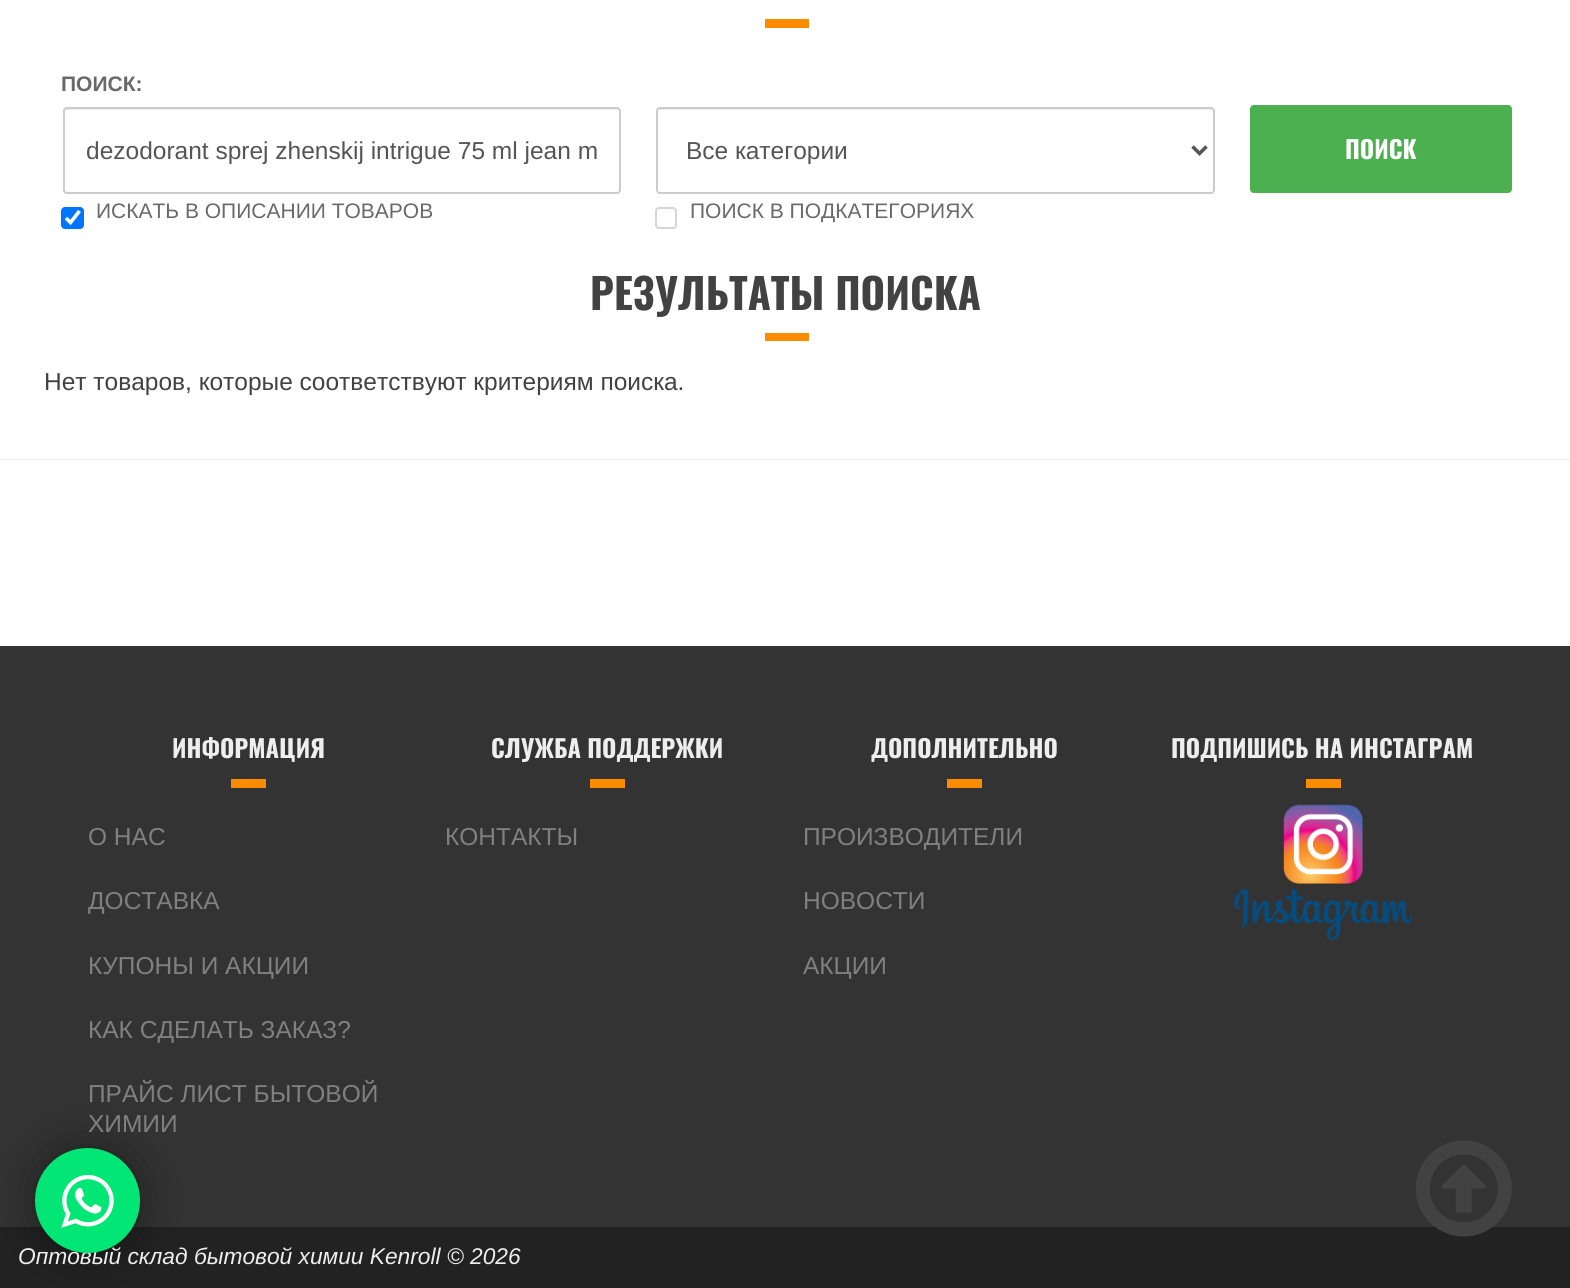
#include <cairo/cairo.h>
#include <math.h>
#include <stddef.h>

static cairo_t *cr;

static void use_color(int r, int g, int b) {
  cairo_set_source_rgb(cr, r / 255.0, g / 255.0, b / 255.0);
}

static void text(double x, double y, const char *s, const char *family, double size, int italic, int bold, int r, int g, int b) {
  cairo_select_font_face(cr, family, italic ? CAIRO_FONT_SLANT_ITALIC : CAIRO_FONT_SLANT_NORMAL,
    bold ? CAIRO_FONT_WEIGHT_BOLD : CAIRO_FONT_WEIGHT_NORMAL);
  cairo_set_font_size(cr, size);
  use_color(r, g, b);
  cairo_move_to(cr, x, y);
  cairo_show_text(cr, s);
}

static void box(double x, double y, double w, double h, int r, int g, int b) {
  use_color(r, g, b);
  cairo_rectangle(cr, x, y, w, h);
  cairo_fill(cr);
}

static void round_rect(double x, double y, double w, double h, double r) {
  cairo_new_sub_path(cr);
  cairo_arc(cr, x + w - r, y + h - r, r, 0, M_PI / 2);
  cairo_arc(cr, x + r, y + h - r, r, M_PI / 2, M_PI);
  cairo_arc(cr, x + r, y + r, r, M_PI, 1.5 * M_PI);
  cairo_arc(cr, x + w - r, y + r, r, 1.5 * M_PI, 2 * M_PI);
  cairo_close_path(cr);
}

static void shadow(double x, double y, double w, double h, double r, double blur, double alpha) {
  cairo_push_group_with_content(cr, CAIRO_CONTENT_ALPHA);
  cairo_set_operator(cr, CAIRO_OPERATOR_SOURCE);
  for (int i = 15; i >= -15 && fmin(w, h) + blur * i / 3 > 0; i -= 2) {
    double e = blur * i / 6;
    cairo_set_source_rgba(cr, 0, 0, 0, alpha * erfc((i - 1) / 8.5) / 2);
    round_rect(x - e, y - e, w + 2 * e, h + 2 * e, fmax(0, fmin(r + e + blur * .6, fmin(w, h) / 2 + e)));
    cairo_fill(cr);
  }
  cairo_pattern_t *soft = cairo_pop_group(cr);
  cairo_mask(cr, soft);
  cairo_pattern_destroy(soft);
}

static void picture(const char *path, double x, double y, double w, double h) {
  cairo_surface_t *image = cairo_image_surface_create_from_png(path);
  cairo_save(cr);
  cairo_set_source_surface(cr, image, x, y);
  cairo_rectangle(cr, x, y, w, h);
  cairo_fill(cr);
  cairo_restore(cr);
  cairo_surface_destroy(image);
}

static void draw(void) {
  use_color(255, 255, 255);
  cairo_paint(cr);
  box(0, 459, 1570, 1, 238, 238, 238);
  box(765, 19, 44, 9, 251, 140, 0);
  use_color(236, 236, 236);
  cairo_new_path(cr);
  cairo_move_to(cr, 66, 110);
  cairo_line_to(cr, 618, 110);
  cairo_curve_to(cr, 619, 110, 620, 111, 620, 112);
  cairo_curve_to(cr, 620, 111, 620, 109, 618, 109);
  cairo_line_to(cr, 67, 109);
  cairo_line_to(cr, 65, 110);
  cairo_line_to(cr, 65, 112);
  cairo_close_path(cr);
  cairo_fill(cr);
  round_rect(64, 108, 556, 85, 3);
  use_color(204, 204, 204);
  cairo_stroke(cr);
  use_color(0, 117, 255);
  round_rect(61, 207, 23, 22, 4);
  cairo_fill(cr);
  cairo_new_path(cr);
  cairo_move_to(cr, 66, 218);
  cairo_line_to(cr, 70.5, 222.5);
  cairo_line_to(cr, 79.5, 211);
  use_color(255, 255, 255);
  cairo_set_line_width(cr, 3.6);
  cairo_stroke(cr);
  use_color(236, 236, 236);
  cairo_new_path(cr);
  cairo_move_to(cr, 660, 110);
  cairo_line_to(cr, 1211, 110);
  cairo_curve_to(cr, 1212, 110, 1213, 111, 1213, 112);
  cairo_curve_to(cr, 1213, 111, 1213, 109, 1211, 109);
  cairo_line_to(cr, 660, 109);
  cairo_line_to(cr, 658, 110);
  cairo_line_to(cr, 658, 112);
  cairo_curve_to(cr, 658, 111, 659, 110, 660, 110);
  cairo_close_path(cr);
  cairo_fill(cr);
  round_rect(657, 108, 557, 85, 3);
  use_color(204, 204, 204);
  cairo_set_line_width(cr, 2);
  cairo_stroke(cr);
  cairo_new_path(cr);
  cairo_move_to(cr, 1192.5, 146.5);
  cairo_line_to(cr, 1199.5, 153.5);
  cairo_line_to(cr, 1206.5, 146.5);
  use_color(85, 85, 85);
  cairo_set_line_width(cr, 3.5);
  cairo_stroke(cr);
  round_rect(656, 208, 20, 20, 3);
  use_color(214, 214, 214);
  cairo_set_line_width(cr, 2);
  cairo_stroke(cr);
  use_color(76, 175, 80);
  round_rect(1250, 105, 262, 88, 4);
  cairo_fill(cr);
  box(765, 333, 44, 8, 251, 140, 0);
  box(0, 646, 1570, 581, 51, 51, 51);
  box(231, 779, 35, 9, 251, 140, 0);
  box(590, 779, 35, 9, 251, 140, 0);
  box(947, 779, 35, 9, 251, 140, 0);
  box(1306, 779, 35, 9, 251, 140, 0);
  picture("img_01.png", 1233, 804, 180, 136);
  box(0, 1227, 1570, 61, 34, 34, 34);
  picture("img_02.png", 1416, 1140, 96, 97);
  use_color(0, 0, 0);
  shadow(35, 1148, 105, 105, 52.5, 22, 0.4);
  text(61, 91, "ПОИСК:", "Liberation Sans", 21, 0, 1, 105, 105, 105);
  text(86, 159, "dezodorant sprej zhenskij intrigue 75 ml jean m", "Liberation Sans", 24.5, 0, 0, 85, 85, 85);
  text(96, 218, "ИСКАТЬ В ОПИСАНИИ ТОВАРОВ", "Liberation Sans", 21, 0, 0, 105, 105, 105);
  text(686, 159, "Все категории", "Liberation Sans", 24.5, 0, 0, 85, 85, 85);
  text(690, 218, "ПОИСК В ПОДКАТЕГОРИЯХ", "Liberation Sans", 21, 0, 0, 105, 105, 105);
  text(1345, 159, "ПОИСК", "Oswald", 24.5, 0, 1, 255, 255, 255);
  text(590, 310, "РЕЗУЛЬТАТЫ ПОИСКА", "Oswald", 42, 0, 1, 66, 66, 66);
  text(44, 390, "Нет товаров, которые соответствуют критериям поиска.", "Liberation Sans", 24.5, 0, 0, 66, 66, 66);
  text(172, 758, "ИНФОРМАЦИЯ", "Oswald", 24.5, 0, 1, 238, 238, 238);
  text(88, 845, "О НАС", "Liberation Sans", 24.5, 0, 0, 128, 128, 128);
  text(88, 909, "ДОСТАВКА", "Liberation Sans", 24.5, 0, 0, 128, 128, 128);
  text(88, 974, "КУПОНЫ И АКЦИИ", "Liberation Sans", 24.5, 0, 0, 128, 128, 128);
  text(88, 1038, "КАК СДЕЛАТЬ ЗАКАЗ?", "Liberation Sans", 24.5, 0, 0, 128, 128, 128);
  text(88, 1102, "ПРАЙС ЛИСТ БЫТОВОЙ", "Liberation Sans", 24.5, 0, 0, 128, 128, 128);
  text(88, 1132, "ХИМИИ", "Liberation Sans", 24.5, 0, 0, 128, 128, 128);
  text(491, 758, "СЛУЖБА ПОДДЕРЖКИ", "Oswald", 24.5, 0, 1, 238, 238, 238);
  text(445, 845, "КОНТАКТЫ", "Liberation Sans", 24.5, 0, 0, 128, 128, 128);
  text(871, 758, "ДОПОЛНИТЕЛЬНО", "Oswald", 24.5, 0, 1, 238, 238, 238);
  text(803, 845, "ПРОИЗВОДИТЕЛИ", "Liberation Sans", 24.5, 0, 0, 128, 128, 128);
  text(803, 909, "НОВОСТИ", "Liberation Sans", 24.5, 0, 0, 128, 128, 128);
  text(803, 974, "АКЦИИ", "Liberation Sans", 24.5, 0, 0, 128, 128, 128);
  text(1171, 758, "ПОДПИШИСЬ НА ИНСТАГРАМ", "Oswald", 24.5, 0, 1, 238, 238, 238);
  text(18, 1264, "Оптовый склад бытовой химии Kenroll © 2026", "Liberation Sans", 22.75, 1, 0, 238, 238, 238);
  use_color(1, 230, 117);
  cairo_new_path(cr);
  cairo_arc(cr, 87.5, 1200.5, 50.5, 0, 2 * M_PI);
  cairo_fill_preserve(cr);
  cairo_set_line_width(cr, 4);
  cairo_stroke(cr);
  picture("img_03.png", 61, 1174, 53, 54);
}

int main(void) {
  cairo_surface_t *surface = cairo_image_surface_create(CAIRO_FORMAT_RGB24, 1570, 1288);
  cr = cairo_create(surface);
  cairo_font_options_t *options = cairo_font_options_create();
  cairo_font_options_set_hint_metrics(options, CAIRO_HINT_METRICS_OFF);
  cairo_font_options_set_hint_style(options, CAIRO_HINT_STYLE_NONE);
  cairo_set_font_options(cr, options);
  cairo_set_miter_limit(cr, 4);
  draw();
  cairo_surface_write_to_png(surface, "out.png");
  cairo_font_options_destroy(options);
  cairo_destroy(cr);
  cairo_surface_destroy(surface);
  return 0;
}
